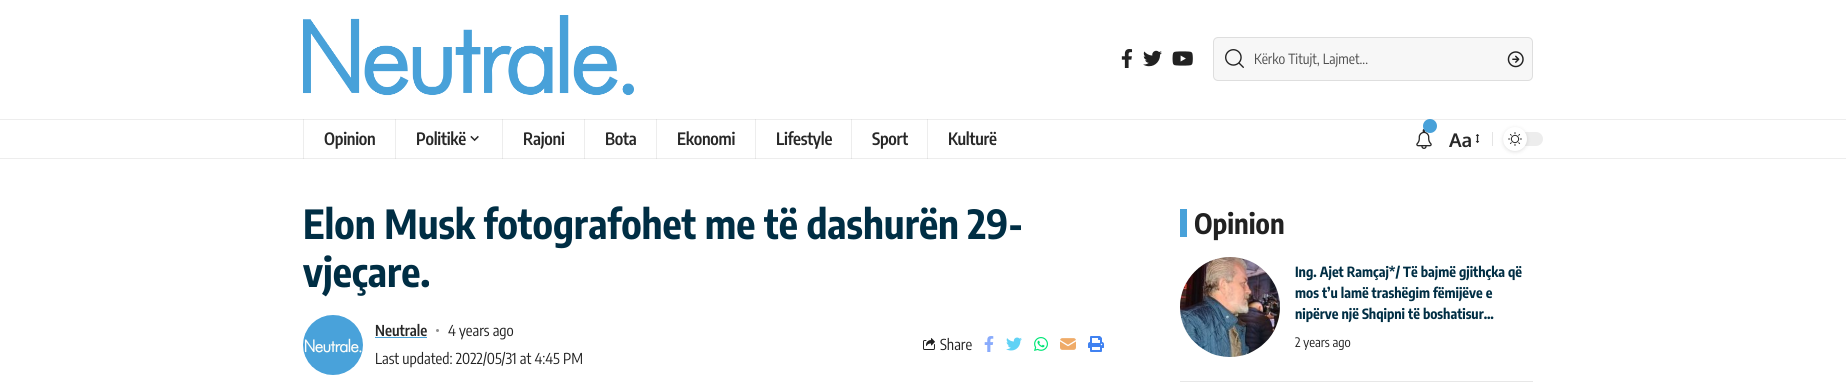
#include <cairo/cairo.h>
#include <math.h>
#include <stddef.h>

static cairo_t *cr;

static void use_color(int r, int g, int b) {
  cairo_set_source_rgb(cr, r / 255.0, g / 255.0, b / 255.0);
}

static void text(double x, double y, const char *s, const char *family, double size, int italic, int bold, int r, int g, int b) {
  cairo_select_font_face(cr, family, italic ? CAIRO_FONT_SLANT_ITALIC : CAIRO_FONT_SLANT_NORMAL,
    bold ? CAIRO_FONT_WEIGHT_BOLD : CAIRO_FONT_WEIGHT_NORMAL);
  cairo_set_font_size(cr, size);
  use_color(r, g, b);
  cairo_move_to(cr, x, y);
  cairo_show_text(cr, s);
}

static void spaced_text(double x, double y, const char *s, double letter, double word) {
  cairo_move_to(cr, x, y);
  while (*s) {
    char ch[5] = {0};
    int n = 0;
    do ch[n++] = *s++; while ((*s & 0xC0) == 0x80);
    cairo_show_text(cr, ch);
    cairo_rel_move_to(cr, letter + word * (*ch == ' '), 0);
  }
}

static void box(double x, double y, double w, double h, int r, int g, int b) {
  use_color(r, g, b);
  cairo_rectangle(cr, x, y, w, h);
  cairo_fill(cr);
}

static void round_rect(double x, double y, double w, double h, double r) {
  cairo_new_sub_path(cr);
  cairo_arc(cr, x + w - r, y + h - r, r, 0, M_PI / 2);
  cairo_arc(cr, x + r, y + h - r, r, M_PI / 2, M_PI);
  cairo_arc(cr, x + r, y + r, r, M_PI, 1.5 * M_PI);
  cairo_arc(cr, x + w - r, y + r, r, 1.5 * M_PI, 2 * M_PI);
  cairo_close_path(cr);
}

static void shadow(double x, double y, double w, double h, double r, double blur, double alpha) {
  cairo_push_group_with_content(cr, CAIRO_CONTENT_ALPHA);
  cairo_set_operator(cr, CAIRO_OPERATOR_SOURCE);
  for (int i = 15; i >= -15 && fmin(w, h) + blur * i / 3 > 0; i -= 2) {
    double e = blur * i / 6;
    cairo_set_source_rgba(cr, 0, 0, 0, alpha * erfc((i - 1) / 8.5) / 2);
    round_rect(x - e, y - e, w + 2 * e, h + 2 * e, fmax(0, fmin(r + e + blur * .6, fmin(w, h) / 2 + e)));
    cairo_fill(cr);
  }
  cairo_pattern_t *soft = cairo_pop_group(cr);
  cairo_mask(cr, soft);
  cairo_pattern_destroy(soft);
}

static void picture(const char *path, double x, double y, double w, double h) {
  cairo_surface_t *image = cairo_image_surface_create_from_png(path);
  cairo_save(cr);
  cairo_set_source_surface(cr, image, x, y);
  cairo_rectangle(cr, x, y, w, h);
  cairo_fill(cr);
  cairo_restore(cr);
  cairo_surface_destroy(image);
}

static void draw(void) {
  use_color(255, 255, 255);
  cairo_paint(cr);
  box(0, 158, 1846, 1, 237, 237, 237);
  box(927, 119, 1, 40, 237, 237, 237);
  box(927, 158, 1, 1, 222, 222, 222);
  box(851, 119, 1, 40, 237, 237, 237);
  box(851, 158, 1, 1, 222, 222, 222);
  box(755, 119, 1, 40, 237, 237, 237);
  box(755, 158, 1, 1, 222, 222, 222);
  box(656, 119, 1, 40, 237, 237, 237);
  box(656, 158, 1, 1, 222, 222, 222);
  box(584, 119, 1, 40, 237, 237, 237);
  box(584, 158, 1, 1, 222, 222, 222);
  box(502, 119, 1, 40, 237, 237, 237);
  box(502, 158, 1, 1, 222, 222, 222);
  box(395, 119, 1, 40, 237, 237, 237);
  box(395, 158, 1, 1, 222, 222, 222);
  box(303, 119, 1, 40, 237, 237, 237);
  box(303, 158, 1, 1, 222, 222, 222);
  picture("img_01.png", 303, 15, 331, 81);
  picture("img_02.png", 1121, 49, 12, 19);
  picture("img_03.png", 1143, 50, 19, 17);
  picture("img_04.png", 1172, 51, 21, 15);
  use_color(247, 247, 247);
  round_rect(1213, 37, 320, 44, 5);
  cairo_fill(cr);
  round_rect(1213.5, 37.5, 319, 43, 4.5);
  cairo_set_source_rgba(cr, 0.157, 0.157, 0.157, 0.12);
  cairo_set_line_width(cr, 1);
  cairo_stroke(cr);
  picture("img_05.png", 1225, 49, 19, 19);
  picture("img_06.png", 1507, 51, 17, 17);
  box(0, 119, 1846, 1, 237, 237, 237);
  box(927, 119, 1, 1, 222, 222, 222);
  box(851, 119, 1, 1, 222, 222, 222);
  box(755, 119, 1, 1, 222, 222, 222);
  box(656, 119, 1, 1, 222, 222, 222);
  box(584, 119, 1, 1, 222, 222, 222);
  box(502, 119, 1, 1, 222, 222, 222);
  box(395, 119, 1, 1, 222, 222, 222);
  box(303, 119, 1, 1, 222, 222, 222);
  picture("img_07.png", 470, 135, 9, 7);
  picture("img_08.png", 1416, 129, 16, 20);
  use_color(72, 161, 217);
  cairo_arc(cr, 1430, 126, 7, 0, 2 * M_PI);
  cairo_fill(cr);
  picture("img_09.png", 1475, 134, 5, 9);
  box(1492, 132, 1, 14, 228, 228, 228);
  use_color(237, 237, 237);
  round_rect(1503, 132, 40, 14, 7);
  cairo_fill(cr);
  use_color(0, 0, 0);
  shadow(1503, 128, 24, 24, 12, 2, 0.12);
  use_color(255, 255, 255);
  cairo_arc(cr, 1515, 139, 12, 0, 2 * M_PI);
  cairo_fill(cr);
  picture("img_10.png", 1508, 132, 14, 14);
  picture("img_11.png", 303, 315, 60, 60);
  box(375, 337, 52, 1, 72, 161, 217);
  use_color(144, 144, 144);
  cairo_arc(cr, 437.5, 330.5, 1.5, 0, 2 * M_PI);
  cairo_fill(cr);
  picture("img_12.png", 923, 338, 12, 12);
  picture("img_13.png", 984, 336, 10, 16);
  picture("img_14.png", 1006, 337, 16, 14);
  picture("img_15.png", 1034, 337, 14, 14);
  picture("img_16.png", 1060, 338, 16, 12);
  picture("img_17.png", 1088, 336, 16, 16);
  box(1180, 209, 7, 28, 72, 161, 217);
  picture("img_18.png", 1180, 257, 100, 100);
  box(1180, 381, 353, 1, 231, 231, 231);
  text(1254, 64, "Kërko Titujt, Lajmet...", "Encode Sans Condensed", 14, 0, 0, 77, 77, 77);
  cairo_select_font_face(cr, "Encode Sans Condensed SemiBold", CAIRO_FONT_SLANT_NORMAL, CAIRO_FONT_WEIGHT_NORMAL);
  cairo_set_font_size(cr, 17);
  use_color(40, 40, 40);
  spaced_text(324, 145, "Opinion", -0.25, 0);
  spaced_text(416, 145, "Politikë", -0.25, 0);
  spaced_text(523, 145, "Rajoni", -0.25, 0);
  spaced_text(605, 145, "Bota", -0.25, 0);
  spaced_text(677, 145, "Ekonomi", -0.25, 0);
  spaced_text(776, 145, "Lifestyle", -0.25, 0);
  spaced_text(872, 145, "Sport", -0.25, 0);
  spaced_text(948, 145, "Kulturë", -0.25, 0);
  text(1449, 147, "Aa", "Oxygen", 19, 0, 1, 40, 40, 40);
  text(303, 239, "Elon Musk fotografohet me të dashurën 29-", "Encode Sans Condensed", 40, 0, 1, 0, 46, 68);
  text(303, 287, "vjeçare.", "Encode Sans Condensed", 40, 0, 1, 0, 46, 68);
  text(375, 336, "Neutrale", "Encode Sans Condensed SemiBold", 15, 0, 0, 40, 40, 40);
  text(448, 336, "4 years ago", "Encode Sans Condensed", 15, 0, 0, 33, 33, 33);
  text(375, 364, "Last updated: 2022/05/31 at 4:45 PM", "Encode Sans Condensed", 15, 0, 0, 33, 33, 33);
  text(940, 350, "Share", "Encode Sans Condensed", 15, 0, 0, 33, 33, 33);
  text(1194, 234, "Opinion", "Encode Sans Condensed", 28, 0, 1, 33, 33, 33);
  text(1295, 277, "Ing. Ajet Ramçaj*/ Të bajmë gjithçka që", "Encode Sans Condensed", 14, 0, 1, 0, 46, 68);
  text(1295, 298, "mos t’u lamë trashëgim fëmijëve e", "Encode Sans Condensed", 14, 0, 1, 0, 46, 68);
  text(1295, 319, "nipërve një Shqipni të boshatisur…", "Encode Sans Condensed", 14, 0, 1, 0, 46, 68);
  text(1295, 347, "2 years ago", "Encode Sans Condensed", 13, 0, 0, 33, 33, 33);
}

int main(void) {
  cairo_surface_t *surface = cairo_image_surface_create(CAIRO_FORMAT_RGB24, 1846, 389);
  cr = cairo_create(surface);
  cairo_font_options_t *options = cairo_font_options_create();
  cairo_font_options_set_hint_metrics(options, CAIRO_HINT_METRICS_OFF);
  cairo_font_options_set_hint_style(options, CAIRO_HINT_STYLE_NONE);
  cairo_set_font_options(cr, options);
  cairo_set_miter_limit(cr, 4);
  draw();
  cairo_surface_write_to_png(surface, "out.png");
  cairo_font_options_destroy(options);
  cairo_destroy(cr);
  cairo_surface_destroy(surface);
  return 0;
}
